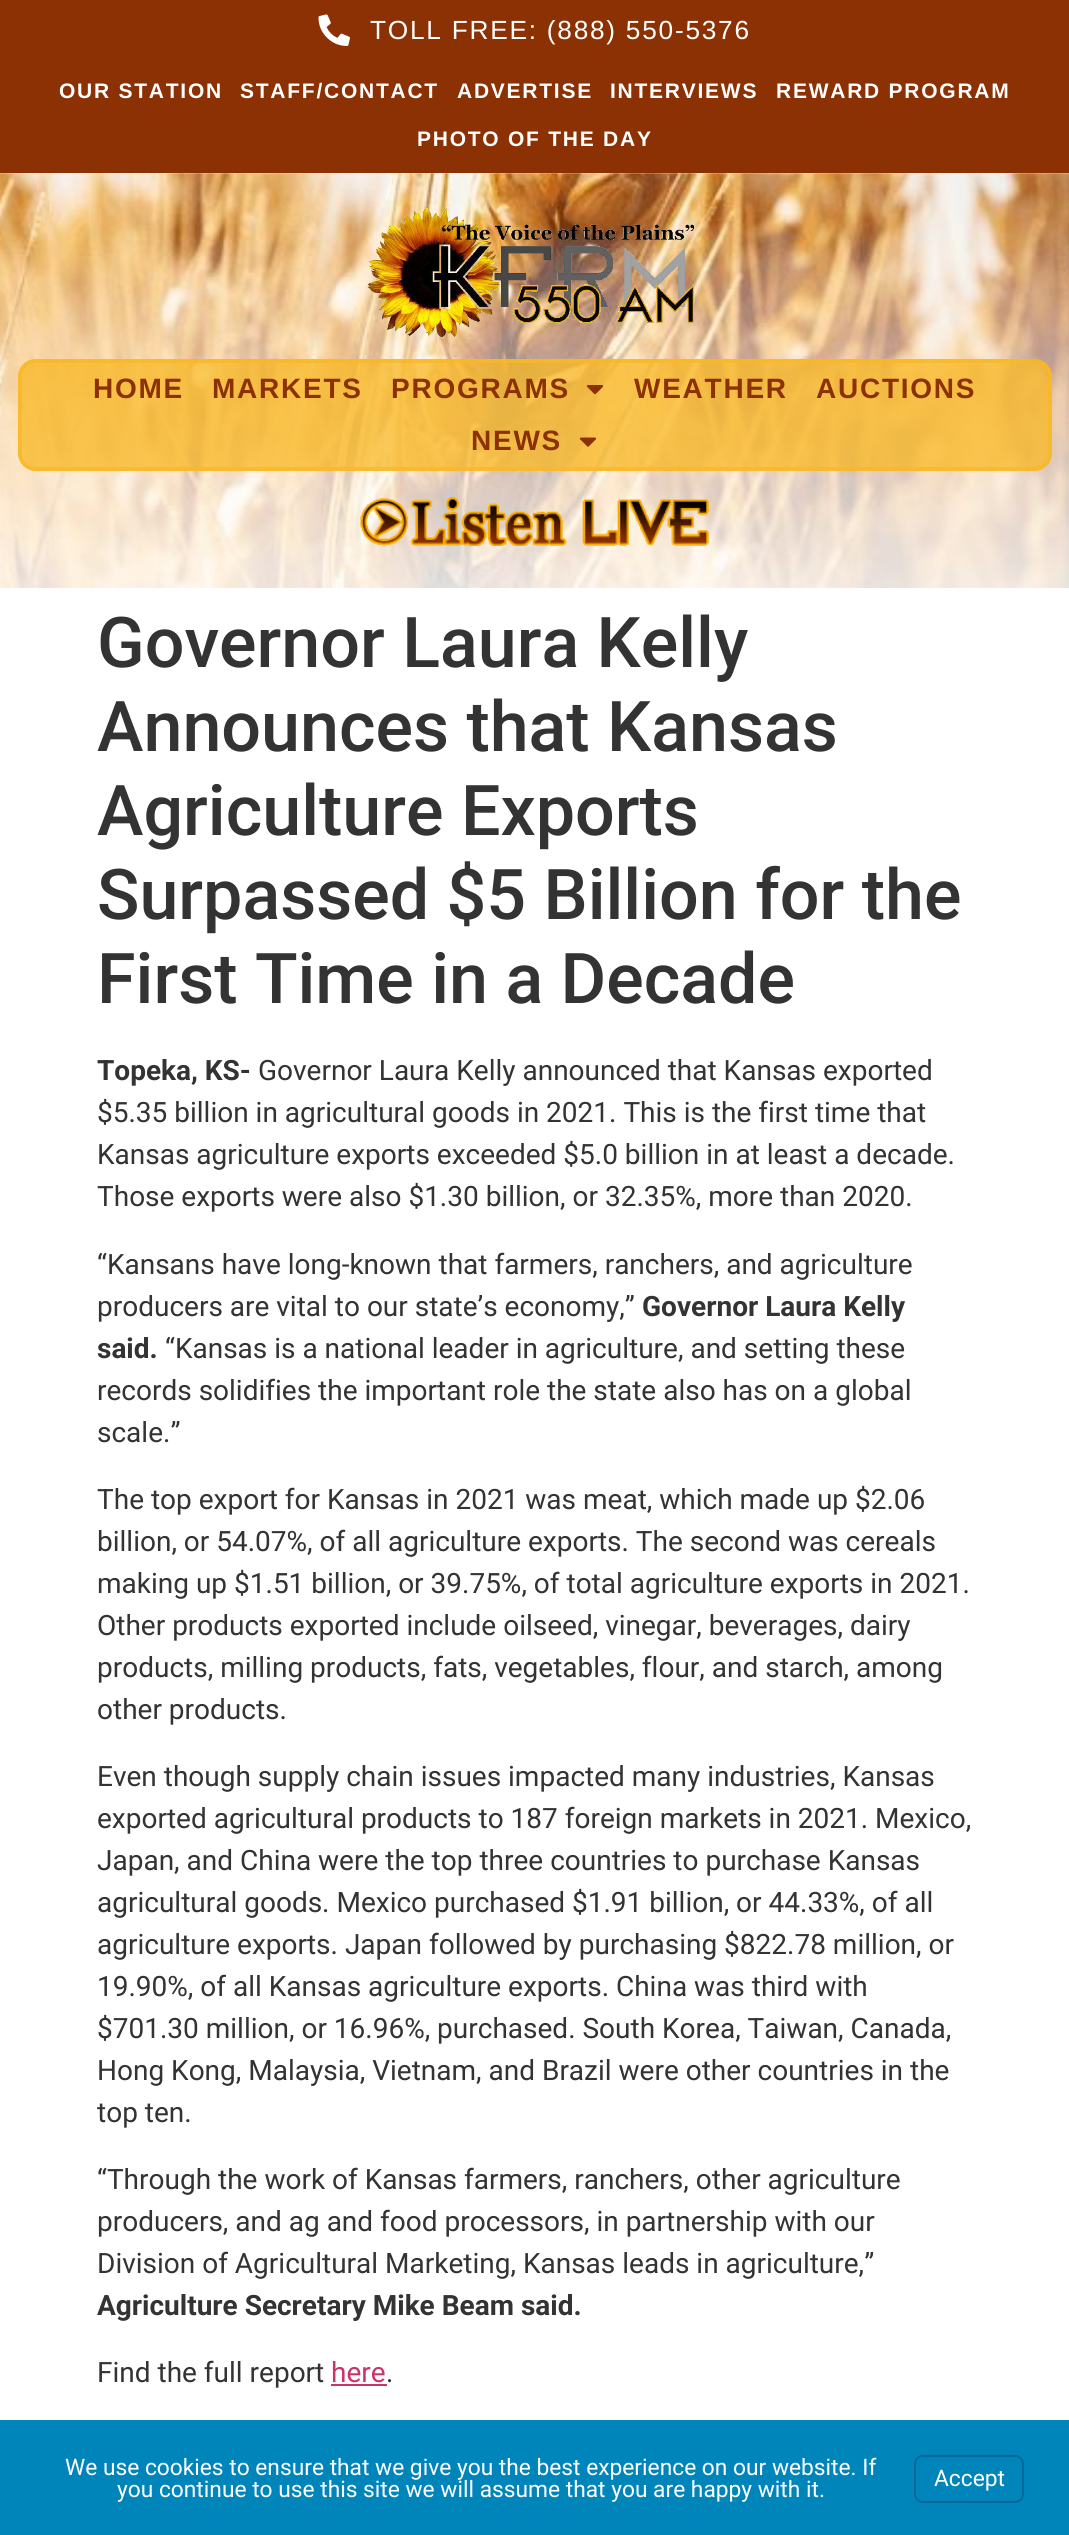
#include <cairo/cairo.h>
#include <math.h>
#include <stddef.h>

static cairo_t *cr;

static void use_color(int r, int g, int b) {
  cairo_set_source_rgb(cr, r / 255.0, g / 255.0, b / 255.0);
}

static void text(double x, double y, const char *s, const char *family, double size, int italic, int bold, int r, int g, int b) {
  cairo_select_font_face(cr, family, italic ? CAIRO_FONT_SLANT_ITALIC : CAIRO_FONT_SLANT_NORMAL,
    bold ? CAIRO_FONT_WEIGHT_BOLD : CAIRO_FONT_WEIGHT_NORMAL);
  cairo_set_font_size(cr, size);
  use_color(r, g, b);
  cairo_move_to(cr, x, y);
  cairo_show_text(cr, s);
}

static void spaced_text(double x, double y, const char *s, double letter, double word) {
  cairo_move_to(cr, x, y);
  while (*s) {
    char ch[5] = {0};
    int n = 0;
    do ch[n++] = *s++; while ((*s & 0xC0) == 0x80);
    cairo_show_text(cr, ch);
    cairo_rel_move_to(cr, letter + word * (*ch == ' '), 0);
  }
}

static void box(double x, double y, double w, double h, int r, int g, int b) {
  use_color(r, g, b);
  cairo_rectangle(cr, x, y, w, h);
  cairo_fill(cr);
}

static void round_rect(double x, double y, double w, double h, double r) {
  cairo_new_sub_path(cr);
  cairo_arc(cr, x + w - r, y + h - r, r, 0, M_PI / 2);
  cairo_arc(cr, x + r, y + h - r, r, M_PI / 2, M_PI);
  cairo_arc(cr, x + r, y + r, r, M_PI, 1.5 * M_PI);
  cairo_arc(cr, x + w - r, y + r, r, 1.5 * M_PI, 2 * M_PI);
  cairo_close_path(cr);
}

static void picture(const char *path, double x, double y, double w, double h) {
  cairo_surface_t *image = cairo_image_surface_create_from_png(path);
  cairo_save(cr);
  cairo_set_source_surface(cr, image, x, y);
  cairo_rectangle(cr, x, y, w, h);
  cairo_fill(cr);
  cairo_restore(cr);
  cairo_surface_destroy(image);
}

static void draw(void) {
  use_color(255, 255, 255);
  cairo_paint(cr);
  box(0, 0, 1069, 173, 139, 49, 3);
  picture("img_01.png", 318, 14, 32, 32);
  picture("img_02.png", 0, 173, 1069, 415);
  picture("img_03.png", 367, 208, 328, 130);
  cairo_set_source_rgba(cr, 0.976, 0.722, 0.145, 0.76);
  round_rect(18, 359, 1034, 112, 18);
  cairo_fill(cr);
  round_rect(20, 361, 1030, 108, 16);
  cairo_set_line_width(cr, 4);
  cairo_stroke(cr);
  picture("img_04.png", 586, 385, 18, 10);
  picture("img_05.png", 579, 437, 18, 10);
  picture("img_06.png", 360, 497, 349, 49);
  box(331, 2384, 56, 2, 204, 51, 102);
  box(0, 2420, 1069, 115, 0, 133, 186);
  round_rect(915, 2456, 108, 46, 8);
  use_color(0, 103, 153);
  cairo_set_line_width(cr, 2);
  cairo_stroke(cr);
  cairo_select_font_face(cr, "Liberation Sans", CAIRO_FONT_SLANT_NORMAL, CAIRO_FONT_WEIGHT_NORMAL);
  cairo_set_font_size(cr, 26.25);
  use_color(255, 255, 255);
  spaced_text(370, 39, "TOLL FREE: (888) 550-5376", 1.75, 0);
  cairo_select_font_face(cr, "Liberation Sans", CAIRO_FONT_SLANT_NORMAL, CAIRO_FONT_WEIGHT_BOLD);
  cairo_set_font_size(cr, 21);
  spaced_text(59, 98, "OUR STATION", 1.75, 0);
  spaced_text(240, 98, "STAFF/CONTACT", 1.75, 0);
  spaced_text(457, 98, "ADVERTISE", 1.75, 0);
  spaced_text(610, 98, "INTERVIEWS", 1.75, 0);
  spaced_text(776, 98, "REWARD PROGRAM", 1.75, 0);
  spaced_text(417, 146, "PHOTO OF THE DAY", 1.75, 0);
  cairo_set_font_size(cr, 28);
  use_color(139, 49, 3);
  spaced_text(93, 398, "HOME", 1.75, 0);
  spaced_text(212, 398, "MARKETS", 1.75, 0);
  spaced_text(391, 398, "PROGRAMS", 1.75, 0);
  spaced_text(634, 398, "WEATHER", 1.75, 0);
  spaced_text(816, 398, "AUCTIONS", 1.75, 0);
  spaced_text(471, 450, "NEWS", 1.75, 0);
  text(97, 667, "Governor Laura Kelly", "Roboto Medium", 70, 0, 0, 51, 51, 51);
  text(97, 751, "Announces that Kansas", "Roboto Medium", 70, 0, 0, 51, 51, 51);
  text(97, 835, "Agriculture Exports", "Roboto Medium", 70, 0, 0, 51, 51, 51);
  text(97, 919, "Surpassed $5 Billion for the", "Roboto Medium", 70, 0, 0, 51, 51, 51);
  text(97, 1003, "First Time in a Decade", "Roboto Medium", 70, 0, 0, 51, 51, 51);
  text(97, 1080, "Topeka, KS-", "Roboto", 28, 0, 1, 51, 51, 51);
  text(258, 1080, "Governor Laura Kelly announced that Kansas exported", "Roboto", 28, 0, 0, 51, 51, 51);
  text(97, 1122, "$5.35 billion in agricultural goods in 2021. This is the first time that", "Roboto", 28, 0, 0, 51, 51, 51);
  text(97, 1164, "Kansas agriculture exports exceeded $5.0 billion in at least a decade.", "Roboto", 28, 0, 0, 51, 51, 51);
  text(97, 1206, "Those exports were also $1.30 billion, or 32.35%, more than 2020.", "Roboto", 28, 0, 0, 51, 51, 51);
  text(97, 1274, "“Kansans have long-known that farmers, ranchers, and agriculture", "Roboto", 28, 0, 0, 51, 51, 51);
  text(97, 1316, "producers are vital to our state’s economy,”", "Roboto", 28, 0, 0, 51, 51, 51);
  text(642, 1316, "Governor Laura Kelly", "Roboto", 28, 0, 1, 51, 51, 51);
  text(97, 1358, "said.", "Roboto", 28, 0, 1, 51, 51, 51);
  text(165, 1358, "“Kansas is a national leader in agriculture, and setting these", "Roboto", 28, 0, 0, 51, 51, 51);
  text(97, 1400, "records solidifies the important role the state also has on a global", "Roboto", 28, 0, 0, 51, 51, 51);
  text(97, 1442, "scale.”", "Roboto", 28, 0, 0, 51, 51, 51);
  text(97, 1509, "The top export for Kansas in 2021 was meat, which made up $2.06", "Roboto", 28, 0, 0, 51, 51, 51);
  text(97, 1551, "billion, or 54.07%, of all agriculture exports. The second was cereals", "Roboto", 28, 0, 0, 51, 51, 51);
  text(97, 1593, "making up $1.51 billion, or 39.75%, of total agriculture exports in 2021.", "Roboto", 28, 0, 0, 51, 51, 51);
  text(97, 1635, "Other products exported include oilseed, vinegar, beverages, dairy", "Roboto", 28, 0, 0, 51, 51, 51);
  text(97, 1677, "products, milling products, fats, vegetables, flour, and starch, among", "Roboto", 28, 0, 0, 51, 51, 51);
  text(97, 1719, "other products.", "Roboto", 28, 0, 0, 51, 51, 51);
  text(97, 1786, "Even though supply chain issues impacted many industries, Kansas", "Roboto", 28, 0, 0, 51, 51, 51);
  text(97, 1828, "exported agricultural products to 187 foreign markets in 2021. Mexico,", "Roboto", 28, 0, 0, 51, 51, 51);
  text(97, 1870, "Japan, and China were the top three countries to purchase Kansas", "Roboto", 28, 0, 0, 51, 51, 51);
  text(97, 1912, "agricultural goods. Mexico purchased $1.91 billion, or 44.33%, of all", "Roboto", 28, 0, 0, 51, 51, 51);
  text(97, 1954, "agriculture exports. Japan followed by purchasing $822.78 million, or", "Roboto", 28, 0, 0, 51, 51, 51);
  text(97, 1996, "19.90%, of all Kansas agriculture exports. China was third with", "Roboto", 28, 0, 0, 51, 51, 51);
  text(97, 2038, "$701.30 million, or 16.96%, purchased. South Korea, Taiwan, Canada,", "Roboto", 28, 0, 0, 51, 51, 51);
  text(97, 2080, "Hong Kong, Malaysia, Vietnam, and Brazil were other countries in the", "Roboto", 28, 0, 0, 51, 51, 51);
  text(97, 2122, "top ten.", "Roboto", 28, 0, 0, 51, 51, 51);
  text(97, 2189, "“Through the work of Kansas farmers, ranchers, other agriculture", "Roboto", 28, 0, 0, 51, 51, 51);
  text(97, 2231, "producers, and ag and food processors, in partnership with our", "Roboto", 28, 0, 0, 51, 51, 51);
  text(97, 2273, "Division of Agricultural Marketing, Kansas leads in agriculture,”", "Roboto", 28, 0, 0, 51, 51, 51);
  text(97, 2315, "Agriculture Secretary Mike Beam said.", "Roboto", 28, 0, 1, 51, 51, 51);
  text(97, 2382, "Find the full report", "Roboto", 28, 0, 0, 51, 51, 51);
  text(331, 2382, "here", "Roboto", 28, 0, 0, 204, 51, 102);
  text(386, 2382, ".", "Roboto", 28, 0, 0, 51, 51, 51);
  text(65, 2475, "We use cookies to ensure that we give you the best experience on our website. If", "Roboto", 22.75, 0, 0, 255, 255, 255);
  text(117, 2497, "you continue to use this site we will assume that you are happy with it.", "Roboto", 22.75, 0, 0, 255, 255, 255);
  text(934, 2486, "Accept", "Roboto", 22.75, 0, 0, 255, 255, 255);
}

int main(void) {
  cairo_surface_t *surface = cairo_image_surface_create(CAIRO_FORMAT_RGB24, 1069, 2535);
  cr = cairo_create(surface);
  cairo_font_options_t *options = cairo_font_options_create();
  cairo_font_options_set_hint_metrics(options, CAIRO_HINT_METRICS_OFF);
  cairo_font_options_set_hint_style(options, CAIRO_HINT_STYLE_NONE);
  cairo_set_font_options(cr, options);
  cairo_set_miter_limit(cr, 4);
  draw();
  cairo_surface_write_to_png(surface, "out.png");
  cairo_font_options_destroy(options);
  cairo_destroy(cr);
  cairo_surface_destroy(surface);
  return 0;
}
